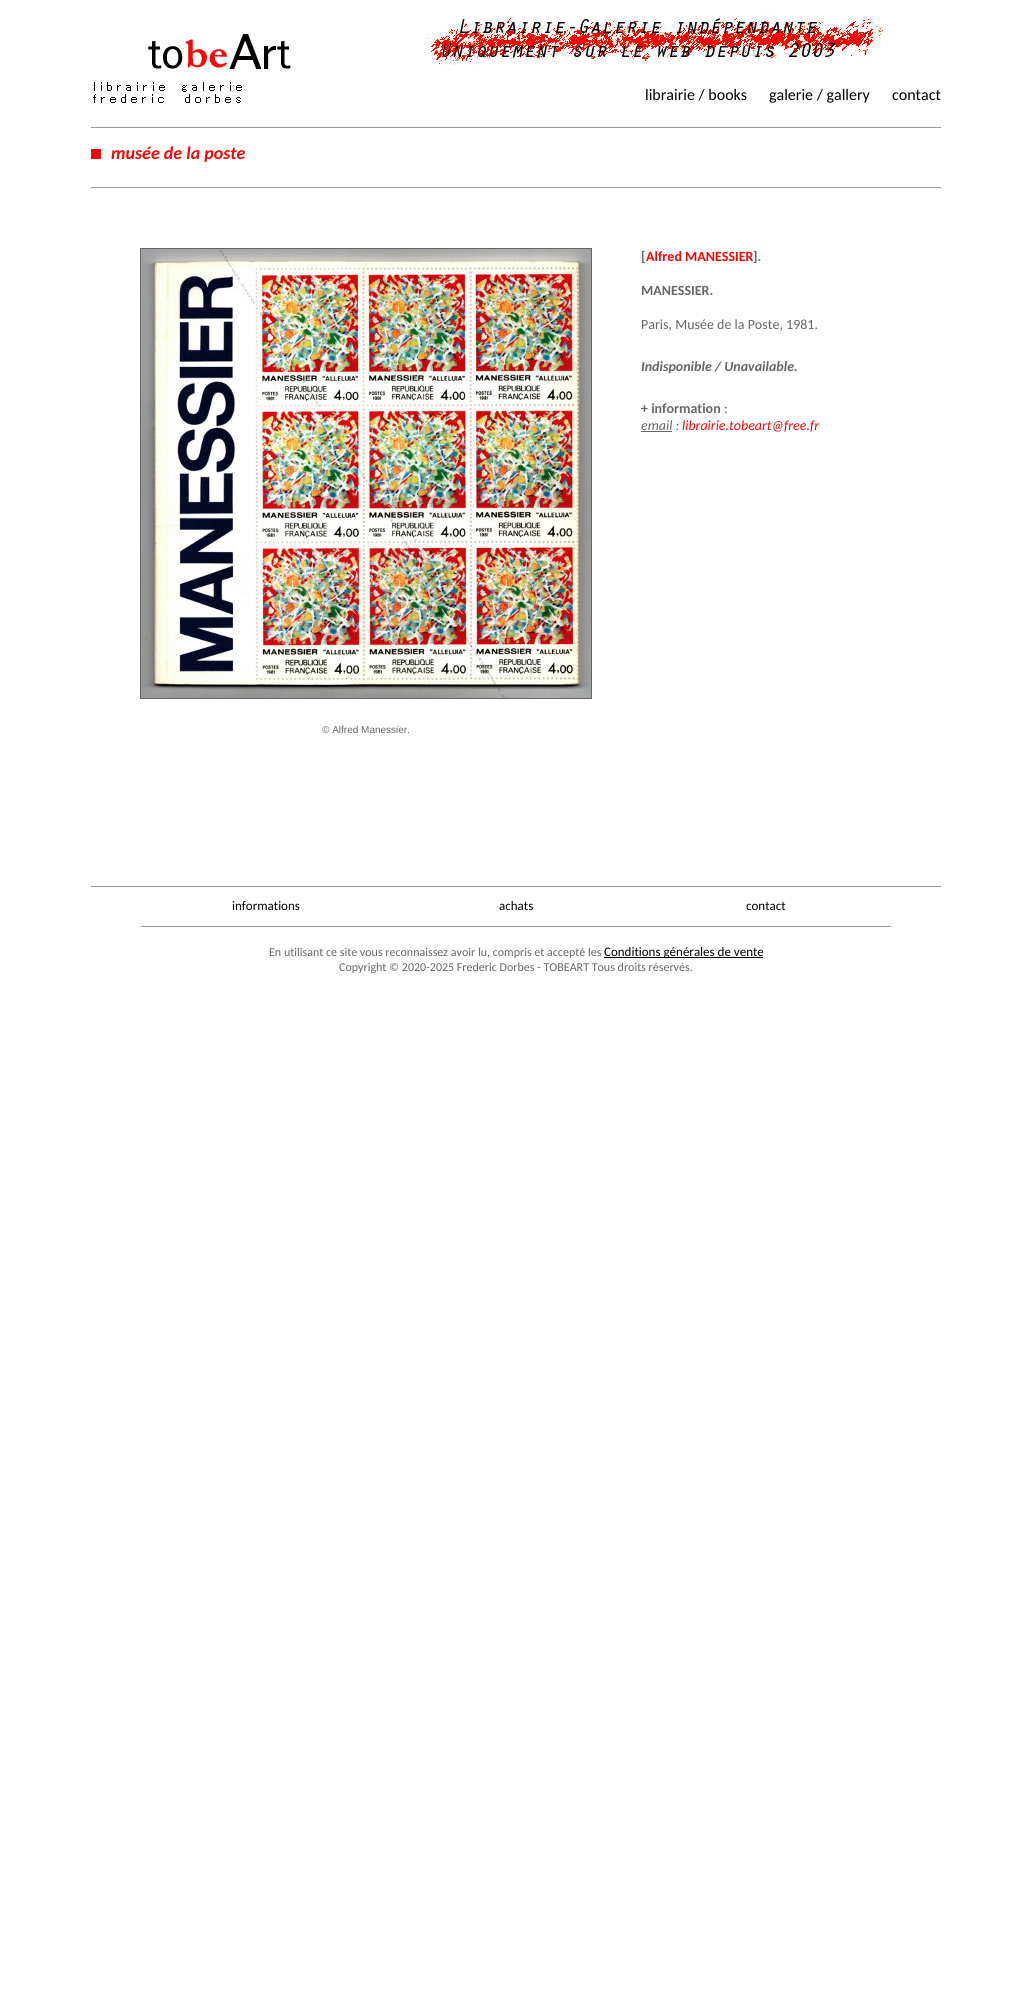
#include <cairo/cairo.h>
#include <math.h>
#include <stddef.h>

static cairo_t *cr;

static void use_color(int r, int g, int b) {
  cairo_set_source_rgb(cr, r / 255.0, g / 255.0, b / 255.0);
}

static void text(double x, double y, const char *s, const char *family, double size, int italic, int bold, int r, int g, int b) {
  cairo_select_font_face(cr, family, italic ? CAIRO_FONT_SLANT_ITALIC : CAIRO_FONT_SLANT_NORMAL,
    bold ? CAIRO_FONT_WEIGHT_BOLD : CAIRO_FONT_WEIGHT_NORMAL);
  cairo_set_font_size(cr, size);
  use_color(r, g, b);
  cairo_move_to(cr, x, y);
  cairo_show_text(cr, s);
}

static void box(double x, double y, double w, double h, int r, int g, int b) {
  use_color(r, g, b);
  cairo_rectangle(cr, x, y, w, h);
  cairo_fill(cr);
}

static void picture(const char *path, double x, double y, double w, double h) {
  cairo_surface_t *image = cairo_image_surface_create_from_png(path);
  cairo_save(cr);
  cairo_set_source_surface(cr, image, x, y);
  cairo_rectangle(cr, x, y, w, h);
  cairo_fill(cr);
  cairo_restore(cr);
  cairo_surface_destroy(image);
}

static void draw(void) {
  use_color(255, 255, 255);
  cairo_paint(cr);
  picture("img_01.png", 93, 34, 198, 69);
  picture("img_02.png", 424, 12, 461, 56);
  box(91, 127, 850, 1, 153, 153, 153);
  box(91, 149, 10, 10, 252, 4, 4);
  box(91, 187, 850, 1, 153, 153, 153);
  box(641, 431, 31, 1, 102, 102, 102);
  cairo_rectangle(cr, 140.5, 248.5, 451, 450);
  cairo_set_line_width(cr, 1);
  cairo_stroke(cr);
  picture("img_03.png", 141, 249, 450, 449);
  box(91, 886, 850, 1, 153, 153, 153);
  box(141, 926, 750, 1, 153, 153, 153);
  box(604, 957, 159, 1, 0, 0, 0);
  text(645, 100, "librairie / books", "Carlito", 16, 0, 0, 0, 0, 0);
  text(769, 100, "galerie / gallery", "Carlito", 16, 0, 0, 0, 0, 0);
  text(892, 100, "contact", "Carlito", 16, 0, 0, 0, 0, 0);
  text(111, 159, "musée de la poste", "Carlito", 18, 1, 1, 251, 4, 4);
  text(641, 261, "[", "Carlito", 14, 0, 1, 102, 102, 102);
  text(646, 261, "Alfred MANESSIER", "Carlito", 14, 0, 1, 251, 4, 4);
  text(753, 261, "].", "Carlito", 14, 0, 1, 102, 102, 102);
  text(641, 295, "MANESSIER.", "Carlito", 14, 0, 1, 102, 102, 102);
  text(641, 329, "Paris, Musée de la Poste, 1981.", "Carlito", 14, 0, 0, 102, 102, 102);
  text(641, 371, "Indisponible / Unavailable.", "Carlito", 14, 1, 1, 102, 102, 102);
  text(641, 413, "+ information", "Carlito", 14, 0, 1, 102, 102, 102);
  text(724, 413, ":", "Carlito", 14, 0, 0, 102, 102, 102);
  text(641, 430, "email :", "Carlito", 14, 1, 0, 102, 102, 102);
  text(682, 430, "librairie.tobeart@free.fr", "Carlito", 14, 1, 0, 251, 4, 4);
  text(322, 733, "© Alfred Manessier.", "Liberation Sans", 10, 0, 0, 102, 102, 102);
  text(232, 910, "informations", "Carlito", 13, 0, 0, 0, 0, 0);
  text(499, 910, "achats", "Carlito", 13, 0, 0, 0, 0, 0);
  text(746, 910, "contact", "Carlito", 13, 0, 0, 0, 0, 0);
  text(269, 956, "En utilisant ce site vous reconnaissez avoir lu, compris et accepté les", "Carlito", 12, 0, 0, 102, 102, 102);
  text(604, 956, "Conditions générales de vente", "Carlito", 13, 0, 0, 0, 0, 0);
  text(339, 971, "Copyright © 2020-2025 Frederic Dorbes - TOBEART Tous droits réservés.", "Carlito", 12, 0, 0, 102, 102, 102);
}

int main(void) {
  cairo_surface_t *surface = cairo_image_surface_create(CAIRO_FORMAT_RGB24, 1032, 2001);
  cr = cairo_create(surface);
  cairo_font_options_t *options = cairo_font_options_create();
  cairo_font_options_set_hint_metrics(options, CAIRO_HINT_METRICS_OFF);
  cairo_font_options_set_hint_style(options, CAIRO_HINT_STYLE_NONE);
  cairo_set_font_options(cr, options);
  cairo_set_miter_limit(cr, 4);
  draw();
  cairo_surface_write_to_png(surface, "out.png");
  cairo_font_options_destroy(options);
  cairo_destroy(cr);
  cairo_surface_destroy(surface);
  return 0;
}
